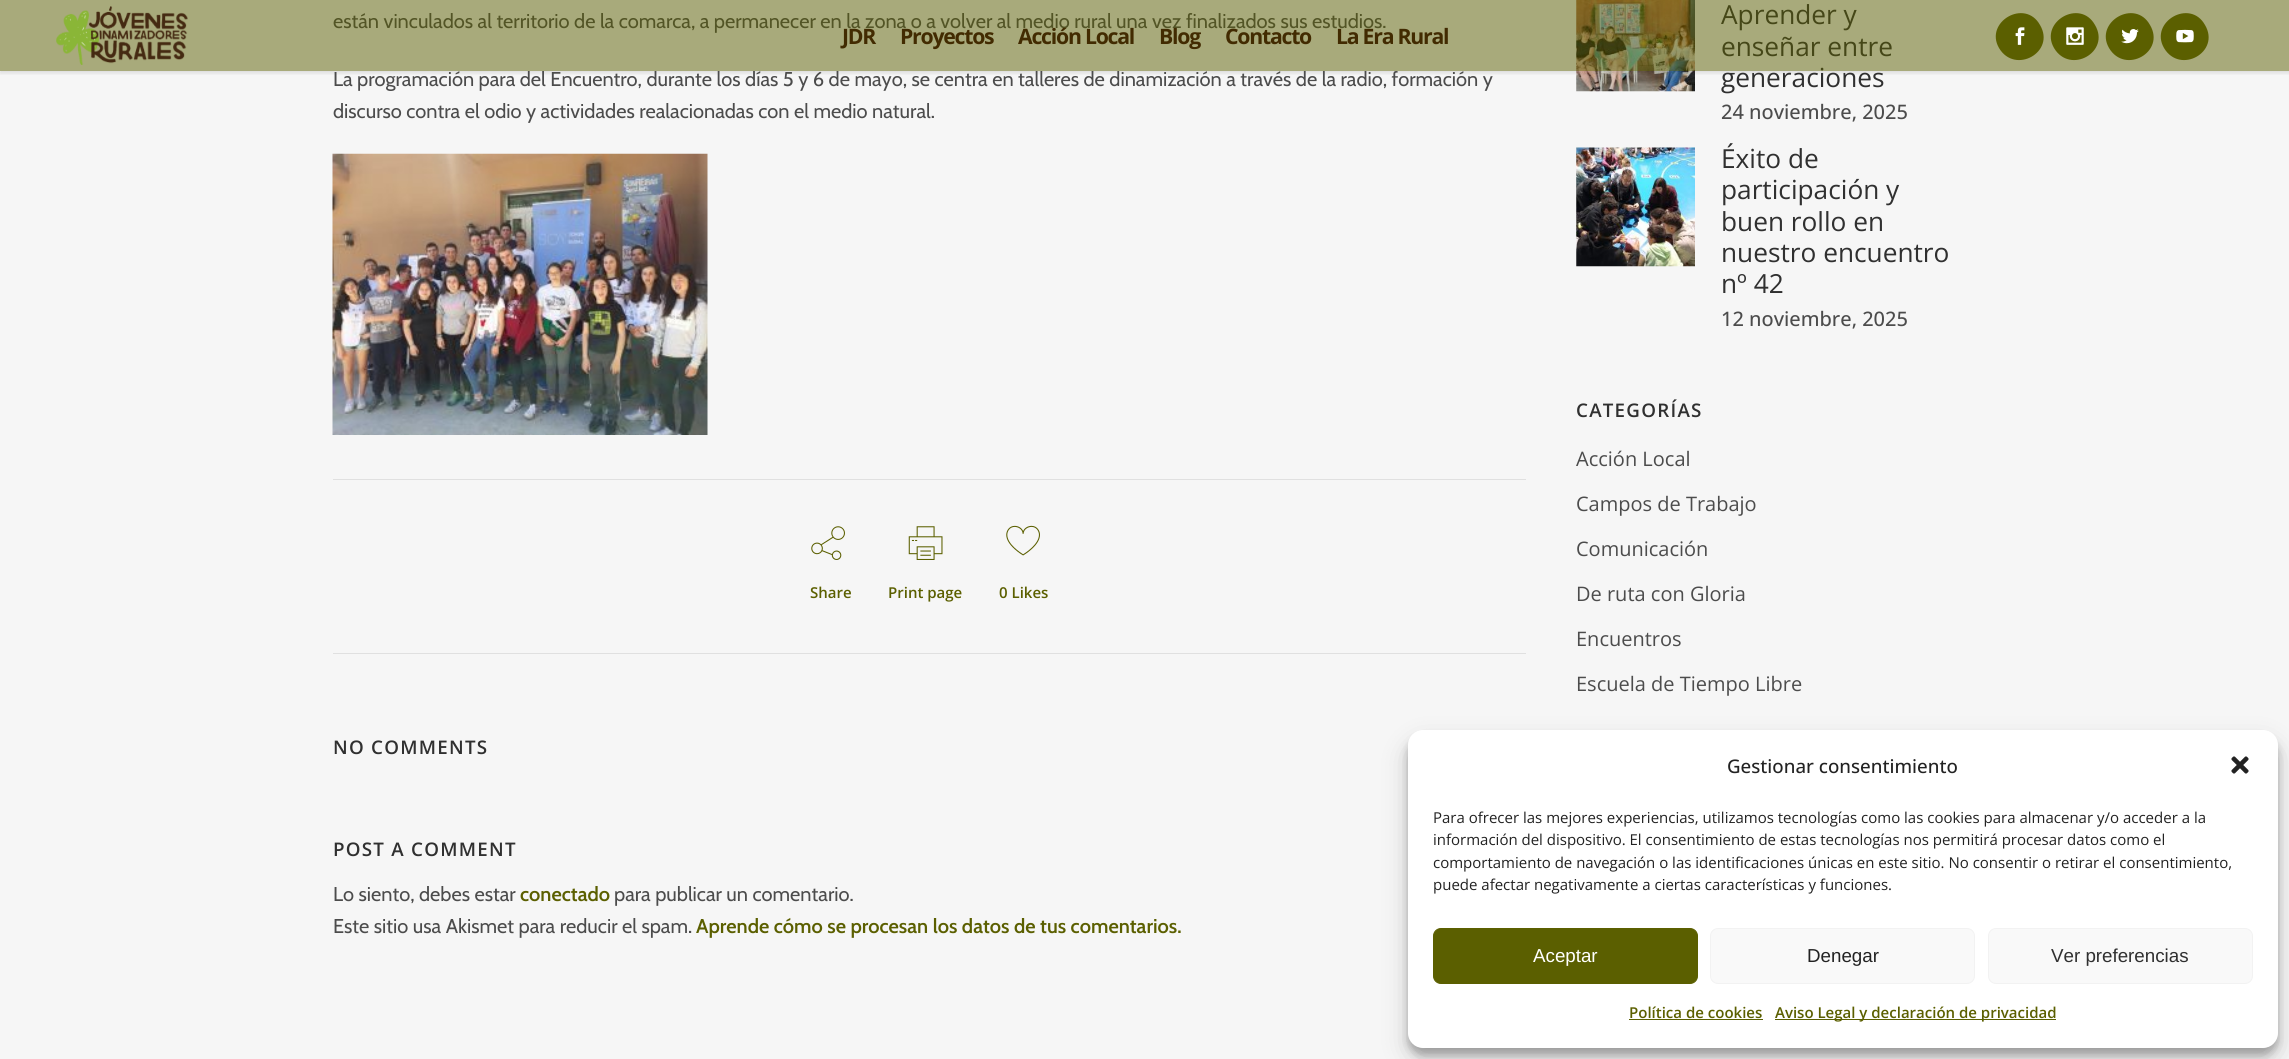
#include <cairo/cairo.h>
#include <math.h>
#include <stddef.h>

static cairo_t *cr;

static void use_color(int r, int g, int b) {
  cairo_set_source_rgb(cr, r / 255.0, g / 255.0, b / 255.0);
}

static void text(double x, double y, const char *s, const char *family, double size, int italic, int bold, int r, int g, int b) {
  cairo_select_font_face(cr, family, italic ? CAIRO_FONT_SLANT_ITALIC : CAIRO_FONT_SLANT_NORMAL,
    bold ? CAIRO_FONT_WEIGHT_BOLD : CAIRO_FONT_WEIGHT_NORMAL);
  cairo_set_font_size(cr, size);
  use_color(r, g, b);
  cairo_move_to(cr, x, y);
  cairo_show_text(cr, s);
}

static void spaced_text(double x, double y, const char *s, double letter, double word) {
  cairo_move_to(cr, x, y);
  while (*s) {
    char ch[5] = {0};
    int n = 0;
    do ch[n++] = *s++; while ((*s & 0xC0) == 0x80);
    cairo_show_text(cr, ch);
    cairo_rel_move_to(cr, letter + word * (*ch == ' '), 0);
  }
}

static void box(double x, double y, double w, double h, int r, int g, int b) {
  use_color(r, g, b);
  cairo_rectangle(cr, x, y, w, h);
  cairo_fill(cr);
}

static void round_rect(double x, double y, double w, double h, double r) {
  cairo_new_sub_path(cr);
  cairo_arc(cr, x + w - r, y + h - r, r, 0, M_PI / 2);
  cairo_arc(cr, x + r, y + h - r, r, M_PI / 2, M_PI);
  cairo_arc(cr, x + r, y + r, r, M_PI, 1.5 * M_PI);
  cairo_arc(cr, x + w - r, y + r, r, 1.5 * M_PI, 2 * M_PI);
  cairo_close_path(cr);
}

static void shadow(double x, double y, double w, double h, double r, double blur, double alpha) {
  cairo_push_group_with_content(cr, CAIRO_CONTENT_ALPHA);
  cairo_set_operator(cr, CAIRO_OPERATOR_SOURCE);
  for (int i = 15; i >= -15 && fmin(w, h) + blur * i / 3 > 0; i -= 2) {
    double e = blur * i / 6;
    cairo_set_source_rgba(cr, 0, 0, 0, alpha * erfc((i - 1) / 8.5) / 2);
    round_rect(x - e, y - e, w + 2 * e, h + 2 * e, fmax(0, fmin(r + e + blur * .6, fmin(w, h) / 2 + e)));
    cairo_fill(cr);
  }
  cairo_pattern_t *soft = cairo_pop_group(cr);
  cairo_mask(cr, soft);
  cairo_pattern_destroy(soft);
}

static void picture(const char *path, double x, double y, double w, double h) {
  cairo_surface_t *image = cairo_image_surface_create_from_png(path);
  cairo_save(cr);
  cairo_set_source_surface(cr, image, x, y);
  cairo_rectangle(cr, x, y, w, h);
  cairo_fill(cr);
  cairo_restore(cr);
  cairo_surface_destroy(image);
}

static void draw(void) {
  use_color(246, 246, 246);
  cairo_paint(cr);
  picture("img_01.png", 332, 153, 376, 282);
  box(333, 479, 1193, 1, 224, 224, 224);
  box(333, 653, 1193, 1, 224, 224, 224);
  picture("img_02.png", 811, 526, 34, 34);
  picture("img_03.png", 908, 526, 35, 34);
  picture("img_04.png", 1006, 525, 34, 31);
  picture("img_05.png", 1576, 0, 119, 92);
  picture("img_06.png", 1576, 147, 119, 120);
  cairo_save(cr);
  cairo_rectangle(cr, 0, 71, 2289, 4);
  cairo_clip(cr);
  use_color(0, 0, 0);
  shadow(0, 1, 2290, 72, 0, 2, 0.11);
  cairo_restore(cr);
  use_color(0, 0, 0);
  shadow(1408, 738, 870, 317, 15, 4, 0.23);
  shadow(1408, 743, 870, 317, 15, 12.5, 0.19);
  use_color(255, 255, 255);
  round_rect(1408, 730, 870, 318, 15);
  cairo_fill(cr);
  picture("img_12.png", 2231, 756, 18, 18);
  use_color(91, 95, 0);
  round_rect(1433.5, 928.5, 264, 55, 7.5);
  cairo_fill_preserve(cr);
  cairo_set_line_width(cr, 1);
  cairo_stroke(cr);
  use_color(249, 249, 249);
  round_rect(1710.5, 928.5, 264, 55, 7.5);
  cairo_fill_preserve(cr);
  use_color(242, 242, 242);
  cairo_stroke(cr);
  use_color(249, 249, 249);
  round_rect(1988.5, 928.5, 264, 55, 7.5);
  cairo_fill_preserve(cr);
  use_color(242, 242, 242);
  cairo_stroke(cr);
  box(1629, 1019, 134, 1, 91, 95, 0);
  box(1775, 1019, 281, 1, 91, 95, 0);
  text(333, 28, "están vinculados al territorio de la comarca, a permanecer en la zona o a volver al medio rural una vez finalizados sus estudios.", "Cabin", 20, 0, 0, 76, 76, 76);
  text(333, 86, "La programación para del Encuentro, durante los días 5 y 6 de mayo, se centra en talleres de dinamización a través de la radio, formación y", "Cabin", 20, 0, 0, 76, 76, 76);
  text(333, 118, "discurso contra el odio y actividades realacionadas con el medio natural.", "Cabin", 20, 0, 0, 76, 76, 76);
  text(810, 598, "Share", "Open Sans SemiBold", 15, 0, 0, 91, 95, 0);
  text(888, 598, "Print page", "Open Sans SemiBold", 15, 0, 0, 91, 95, 0);
  text(999, 598, "0 Likes", "Open Sans SemiBold", 15, 0, 0, 91, 95, 0);
  cairo_set_font_size(cr, 18.75);
  use_color(48, 48, 48);
  spaced_text(333, 754, "NO COMMENTS", 1.25, 0);
  spaced_text(333, 856, "POST A COMMENT", 1.25, 0);
  text(333, 901, "Lo siento, debes estar", "Cabin", 20, 0, 0, 76, 76, 76);
  text(520, 901, "conectado", "Cabin SemiBold", 20, 0, 0, 91, 95, 0);
  text(614, 901, "para publicar un comentario.", "Cabin", 20, 0, 0, 76, 76, 76);
  text(333, 933, "Este sitio usa Akismet para reducir el spam.", "Cabin", 20, 0, 0, 76, 76, 76);
  text(696, 933, "Aprende cómo se procesan los datos de tus comentarios.", "Cabin SemiBold", 20, 0, 0, 91, 95, 0);
  text(1721, 24, "Aprender y", "Open Sans", 26.25, 0, 0, 48, 48, 48);
  text(1721, 56, "enseñar entre", "Open Sans", 26.25, 0, 0, 48, 48, 48);
  text(1721, 87, "generaciones", "Open Sans", 26.25, 0, 0, 48, 48, 48);
  text(1721, 119, "24 noviembre, 2025", "Open Sans Medium", 20, 0, 0, 76, 76, 76);
  text(1721, 168, "Éxito de", "Open Sans", 26.25, 0, 0, 48, 48, 48);
  text(1721, 199, "participación y", "Open Sans", 26.25, 0, 0, 48, 48, 48);
  text(1721, 231, "buen rollo en", "Open Sans", 26.25, 0, 0, 48, 48, 48);
  text(1721, 262, "nuestro encuentro", "Open Sans", 26.25, 0, 0, 48, 48, 48);
  text(1721, 293, "nº 42", "Open Sans", 26.25, 0, 0, 48, 48, 48);
  text(1721, 326, "12 noviembre, 2025", "Open Sans Medium", 20, 0, 0, 76, 76, 76);
  cairo_select_font_face(cr, "Open Sans SemiBold", CAIRO_FONT_SLANT_NORMAL, CAIRO_FONT_WEIGHT_NORMAL);
  cairo_set_font_size(cr, 18.75);
  use_color(48, 48, 48);
  spaced_text(1576, 417, "CATEGORÍAS", 1.25, 0);
  text(1576, 466, "Acción Local", "Open Sans", 20, 0, 0, 76, 76, 76);
  text(1576, 511, "Campos de Trabajo", "Open Sans", 20, 0, 0, 76, 76, 76);
  text(1576, 556, "Comunicación", "Open Sans", 20, 0, 0, 76, 76, 76);
  text(1576, 601, "De ruta con Gloria", "Open Sans", 20, 0, 0, 76, 76, 76);
  text(1576, 646, "Encuentros", "Open Sans", 20, 0, 0, 76, 76, 76);
  text(1576, 691, "Escuela de Tiempo Libre", "Open Sans", 20, 0, 0, 76, 76, 76);
  cairo_set_source_rgba(cr, 0.357, 0.373, 0, 0.5);
  cairo_rectangle(cr, 0, 0, 2289, 71);
  cairo_fill(cr);
  picture("img_07.png", 56, 6, 132, 59);
  cairo_select_font_face(cr, "Open Sans", CAIRO_FONT_SLANT_NORMAL, CAIRO_FONT_WEIGHT_BOLD);
  cairo_set_font_size(cr, 21.25);
  use_color(66, 43, 1);
  spaced_text(842, 44, "JDR", -1.25, 0);
  spaced_text(900, 44, "Proyectos", -1.25, 0);
  spaced_text(1018, 44, "Acción Local", -1.25, 0);
  spaced_text(1159, 44, "Blog", -1.25, 0);
  spaced_text(1225, 44, "Contacto", -1.25, 0);
  spaced_text(1336, 44, "La Era Rural", -1.25, 0);
  use_color(91, 95, 0);
  cairo_new_path(cr);
  cairo_move_to(cr, 2040, 25);
  cairo_curve_to(cr, 2056, 52, 2015, 75, 1999, 48);
  cairo_curve_to(cr, 1984, 22, 2025, -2, 2040, 25);
  cairo_close_path(cr);
  cairo_fill(cr);
  picture("img_08.png", 2015, 27, 10, 18);
  cairo_new_path(cr);
  cairo_move_to(cr, 2095, 25);
  cairo_curve_to(cr, 2111, 52, 2070, 75, 2054, 48);
  cairo_curve_to(cr, 2039, 22, 2080, -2, 2095, 25);
  cairo_close_path(cr);
  cairo_fill(cr);
  picture("img_09.png", 2066, 27, 18, 18);
  cairo_new_path(cr);
  cairo_move_to(cr, 2150, 25);
  cairo_curve_to(cr, 2166, 52, 2125, 75, 2109, 48);
  cairo_curve_to(cr, 2094, 22, 2135, -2, 2150, 25);
  cairo_close_path(cr);
  cairo_fill(cr);
  picture("img_10.png", 2121, 29, 18, 15);
  cairo_new_path(cr);
  cairo_move_to(cr, 2205, 25);
  cairo_curve_to(cr, 2221, 52, 2180, 75, 2164, 48);
  cairo_curve_to(cr, 2149, 22, 2190, -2, 2205, 25);
  cairo_close_path(cr);
  cairo_fill(cr);
  picture("img_11.png", 2176, 29, 18, 14);
  text(1727, 773, "Gestionar consentimiento", "Open Sans Medium", 18.75, 0, 0, 34, 34, 34);
  text(1433, 823, "Para ofrecer las mejores experiencias, utilizamos tecnologías como las cookies para almacenar y/o acceder a la", "Open Sans", 15, 0, 0, 34, 34, 34);
  text(1433, 845, "información del dispositivo. El consentimiento de estas tecnologías nos permitirá procesar datos como el", "Open Sans", 15, 0, 0, 34, 34, 34);
  text(1433, 868, "comportamiento de navegación o las identificaciones únicas en este sitio. No consentir o retirar el consentimiento,", "Open Sans", 15, 0, 0, 34, 34, 34);
  text(1433, 890, "puede afectar negativamente a ciertas características y funciones.", "Open Sans", 15, 0, 0, 34, 34, 34);
  text(1533, 962, "Aceptar", "Liberation Sans", 18.75, 0, 0, 255, 255, 255);
  text(1807, 962, "Denegar", "Liberation Sans", 18.75, 0, 0, 34, 34, 34);
  text(2051, 962, "Ver preferencias", "Liberation Sans", 18.75, 0, 0, 48, 48, 48);
  text(1629, 1018, "Política de cookies", "Open Sans SemiBold", 15, 0, 0, 91, 95, 0);
  text(1775, 1018, "Aviso Legal y declaración de privacidad", "Open Sans SemiBold", 15, 0, 0, 91, 95, 0);
}

int main(void) {
  cairo_surface_t *surface = cairo_image_surface_create(CAIRO_FORMAT_RGB24, 2289, 1059);
  cr = cairo_create(surface);
  cairo_font_options_t *options = cairo_font_options_create();
  cairo_font_options_set_hint_metrics(options, CAIRO_HINT_METRICS_OFF);
  cairo_font_options_set_hint_style(options, CAIRO_HINT_STYLE_NONE);
  cairo_set_font_options(cr, options);
  cairo_set_miter_limit(cr, 4);
  draw();
  cairo_surface_write_to_png(surface, "out.png");
  cairo_font_options_destroy(options);
  cairo_destroy(cr);
  cairo_surface_destroy(surface);
  return 0;
}
